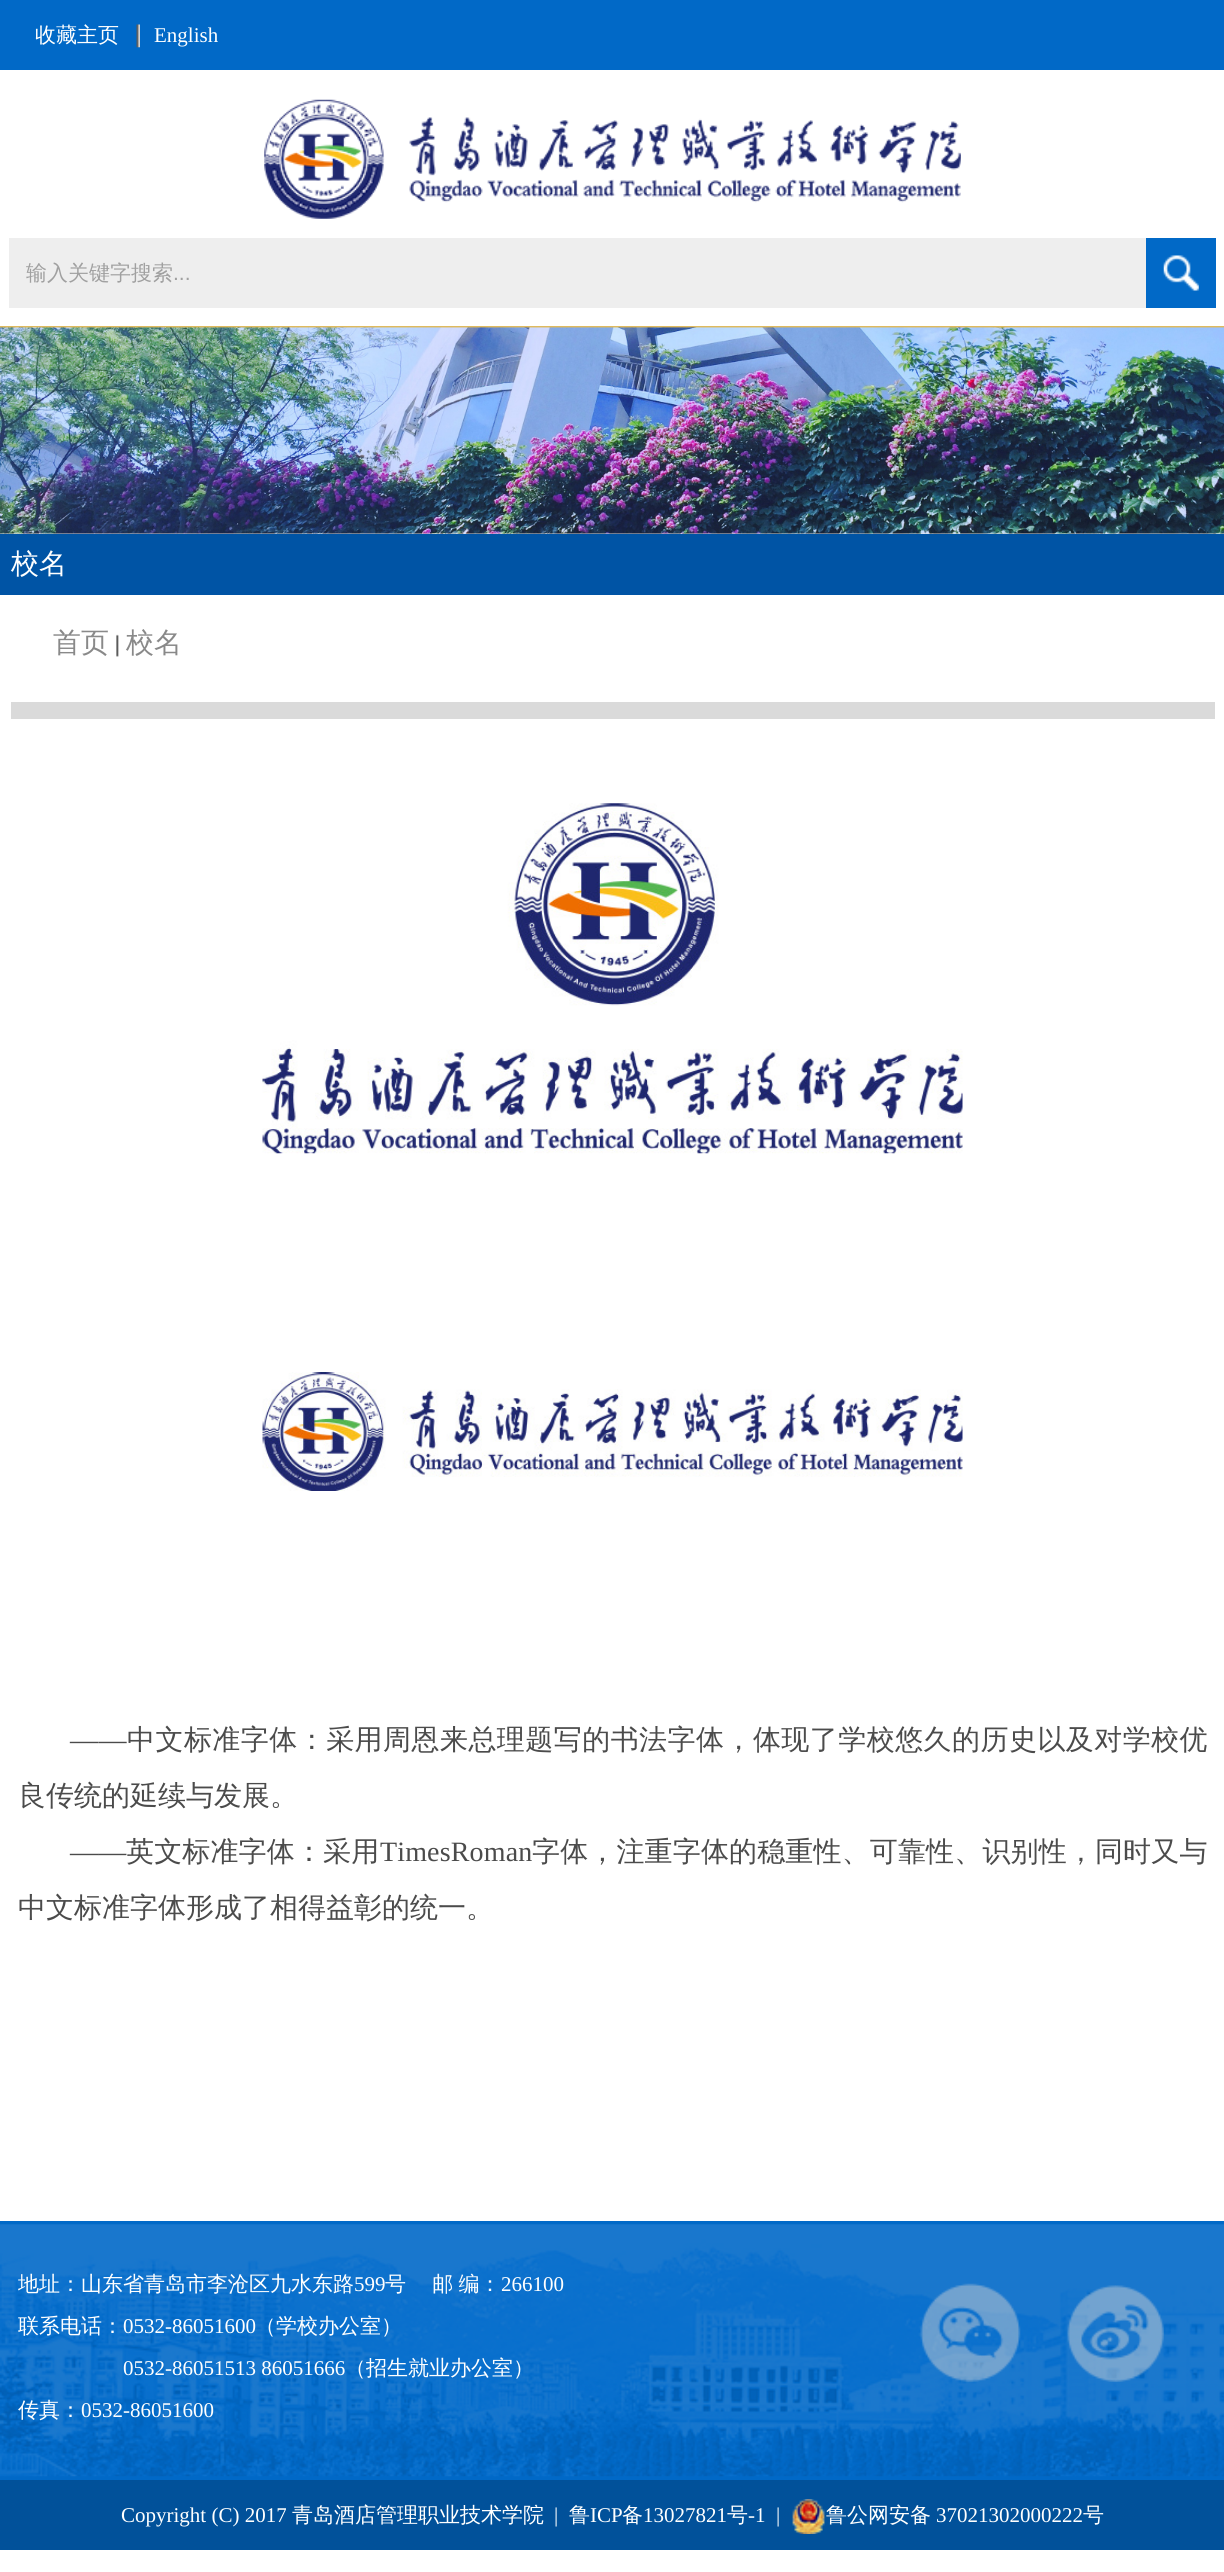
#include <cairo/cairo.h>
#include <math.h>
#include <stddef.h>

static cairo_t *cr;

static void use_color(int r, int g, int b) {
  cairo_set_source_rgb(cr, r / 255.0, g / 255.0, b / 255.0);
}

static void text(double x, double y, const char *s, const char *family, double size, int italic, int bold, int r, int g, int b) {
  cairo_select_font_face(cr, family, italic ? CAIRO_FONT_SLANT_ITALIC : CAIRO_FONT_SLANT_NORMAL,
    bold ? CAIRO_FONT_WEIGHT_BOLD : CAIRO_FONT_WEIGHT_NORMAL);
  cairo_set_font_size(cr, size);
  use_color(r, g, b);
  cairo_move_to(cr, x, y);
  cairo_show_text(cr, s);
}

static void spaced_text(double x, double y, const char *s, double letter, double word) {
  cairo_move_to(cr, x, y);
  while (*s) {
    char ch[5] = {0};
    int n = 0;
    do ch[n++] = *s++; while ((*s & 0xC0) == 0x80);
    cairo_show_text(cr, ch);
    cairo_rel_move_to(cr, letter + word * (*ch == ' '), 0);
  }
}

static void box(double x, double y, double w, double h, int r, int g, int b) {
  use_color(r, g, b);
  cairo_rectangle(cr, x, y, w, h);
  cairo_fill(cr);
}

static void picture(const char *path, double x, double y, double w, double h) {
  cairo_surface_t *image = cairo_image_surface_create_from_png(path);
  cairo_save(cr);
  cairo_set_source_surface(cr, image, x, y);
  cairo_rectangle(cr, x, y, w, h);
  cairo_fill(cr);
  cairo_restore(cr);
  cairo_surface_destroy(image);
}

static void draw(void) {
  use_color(255, 255, 255);
  cairo_paint(cr);
  box(0, 0, 1224, 70, 1, 105, 199);
  picture("img_01.png", 136, 24, 4, 24);
  picture("img_02.png", 264, 99, 697, 120);
  box(9, 238, 1137, 70, 238, 238, 238);
  box(1146, 238, 70, 70, 1, 105, 199);
  picture("img_03.png", 1163, 255, 36, 36);
  box(0, 533, 1224, 1, 236, 236, 236);
  box(0, 326, 1224, 2, 223, 186, 93);
  picture("img_04.png", 0, 327, 1224, 207);
  box(0, 534, 1224, 61, 0, 84, 165);
  box(11, 702, 1204, 17, 218, 218, 218);
  picture("img_05.png", 116, 634, 3, 23);
  picture("img_06.png", 262, 803, 701, 351);
  picture("img_07.png", 262, 1372, 701, 119);
  box(0, 2480, 1224, 70, 1, 81, 154);
  box(0, 2221, 1224, 259, 1, 105, 199);
  picture("img_08.png", 0, 2224, 1224, 253);
  picture("img_09.png", 920, 2283, 101, 99);
  picture("img_10.png", 1067, 2285, 97, 97);
  picture("img_11.png", 792, 2499, 33, 35);
  text(35, 42, "收藏主页", "WenQuanYi Zen Hei Medium", 21, 0, 0, 255, 255, 255);
  text(154, 42, "English", "Liberation Serif", 21, 0, 0, 255, 255, 255);
  text(26, 280, "输入关键字搜索", "WenQuanYi Zen Hei Medium", 21, 0, 0, 160, 160, 160);
  text(173, 280, "...", "Liberation Sans", 21, 0, 0, 160, 160, 160);
  text(11, 573, "校名", "WenQuanYi Zen Hei Medium", 28, 0, 0, 255, 255, 255);
  text(53, 652, "首页", "WenQuanYi Zen Hei Medium", 28, 0, 0, 137, 137, 137);
  text(126, 652, "校名", "WenQuanYi Zen Hei Medium", 28, 0, 0, 137, 137, 137);
  cairo_select_font_face(cr, "Liberation Serif", CAIRO_FONT_SLANT_NORMAL, CAIRO_FONT_WEIGHT_NORMAL);
  use_color(75, 75, 75);
  spaced_text(70, 1749, "——", 0.45, 0);
  cairo_select_font_face(cr, "WenQuanYi Zen Hei Medium", CAIRO_FONT_SLANT_NORMAL, CAIRO_FONT_WEIGHT_NORMAL);
  spaced_text(127, 1749, "中文标准字体：采用周恩来总理题写的书法字体，体现了学校悠久的历史以及对学校优", 0.45, 0);
  text(18, 1805, "良传统的延续与发展。", "WenQuanYi Zen Hei Medium", 28, 0, 0, 75, 75, 75);
  cairo_select_font_face(cr, "Liberation Serif", CAIRO_FONT_SLANT_NORMAL, CAIRO_FONT_WEIGHT_NORMAL);
  spaced_text(70, 1861, "——", 0.15, 0);
  cairo_select_font_face(cr, "WenQuanYi Zen Hei Medium", CAIRO_FONT_SLANT_NORMAL, CAIRO_FONT_WEIGHT_NORMAL);
  spaced_text(126, 1861, "英文标准字体：采用", 0.15, 0);
  cairo_select_font_face(cr, "Liberation Serif", CAIRO_FONT_SLANT_NORMAL, CAIRO_FONT_WEIGHT_NORMAL);
  spaced_text(380, 1861, "TimesRoman", 0.15, 0);
  cairo_select_font_face(cr, "WenQuanYi Zen Hei Medium", CAIRO_FONT_SLANT_NORMAL, CAIRO_FONT_WEIGHT_NORMAL);
  spaced_text(532, 1861, "字体，注重字体的稳重性、可靠性、识别性，同时又与", 0.15, 0);
  text(18, 1917, "中文标准字体形成了相得益彰的统一。", "WenQuanYi Zen Hei Medium", 28, 0, 0, 75, 75, 75);
  text(18, 2291, "地址：山东省青岛市李沧区九水东路", "WenQuanYi Zen Hei Medium", 21, 0, 0, 255, 255, 255);
  text(354, 2291, "599", "Liberation Serif", 21, 0, 0, 255, 255, 255);
  cairo_select_font_face(cr, "WenQuanYi Zen Hei Medium", CAIRO_FONT_SLANT_NORMAL, CAIRO_FONT_WEIGHT_NORMAL);
  spaced_text(385, 2291, "号 　邮 编：", 0, -1);
  text(501, 2291, "266100", "Liberation Serif", 21, 0, 0, 255, 255, 255);
  text(18, 2333, "联系电话：", "WenQuanYi Zen Hei Medium", 21, 0, 0, 255, 255, 255);
  text(123, 2333, "0532-86051600", "Liberation Serif", 21, 0, 0, 255, 255, 255);
  text(255, 2333, "（学校办公室）", "WenQuanYi Zen Hei Medium", 21, 0, 0, 255, 255, 255);
  text(123, 2375, "0532-86051513 86051666", "Liberation Serif", 21, 0, 0, 255, 255, 255);
  text(345, 2375, "（招生就业办公室）", "WenQuanYi Zen Hei Medium", 21, 0, 0, 255, 255, 255);
  text(18, 2417, "传真：", "WenQuanYi Zen Hei Medium", 21, 0, 0, 255, 255, 255);
  text(81, 2417, "0532-86051600", "Liberation Serif", 21, 0, 0, 255, 255, 255);
  text(121, 2522, "Copyright (C) 2017", "Liberation Serif", 21, 0, 0, 255, 255, 255);
  text(292, 2522, "青岛酒店管理职业技术学院", "WenQuanYi Zen Hei Medium", 21, 0, 0, 255, 255, 255);
  text(554, 2522, "|", "Liberation Serif", 21, 0, 0, 255, 255, 255);
  text(569, 2522, "鲁", "WenQuanYi Zen Hei Medium", 21, 0, 0, 255, 255, 255);
  text(590, 2522, "ICP", "Liberation Serif", 21, 0, 0, 255, 255, 255);
  text(622, 2522, "备", "WenQuanYi Zen Hei Medium", 21, 0, 0, 255, 255, 255);
  text(643, 2522, "13027821", "Liberation Serif", 21, 0, 0, 255, 255, 255);
  text(727, 2522, "号", "WenQuanYi Zen Hei Medium", 21, 0, 0, 255, 255, 255);
  text(748, 2522, "-1", "Liberation Serif", 21, 0, 0, 255, 255, 255);
  text(776, 2522, "|", "Liberation Serif", 21, 0, 0, 255, 255, 255);
  text(826, 2522, "鲁公网安备", "WenQuanYi Zen Hei Medium", 21, 0, 0, 255, 255, 255);
  text(936, 2522, "37021302000222", "Liberation Serif", 21, 0, 0, 255, 255, 255);
  text(1083, 2522, "号", "WenQuanYi Zen Hei Medium", 21, 0, 0, 255, 255, 255);
}

int main(void) {
  cairo_surface_t *surface = cairo_image_surface_create(CAIRO_FORMAT_RGB24, 1224, 2572);
  cr = cairo_create(surface);
  cairo_font_options_t *options = cairo_font_options_create();
  cairo_font_options_set_hint_metrics(options, CAIRO_HINT_METRICS_OFF);
  cairo_font_options_set_hint_style(options, CAIRO_HINT_STYLE_NONE);
  cairo_set_font_options(cr, options);
  cairo_set_miter_limit(cr, 4);
  draw();
  cairo_surface_write_to_png(surface, "out.png");
  cairo_font_options_destroy(options);
  cairo_destroy(cr);
  cairo_surface_destroy(surface);
  return 0;
}
